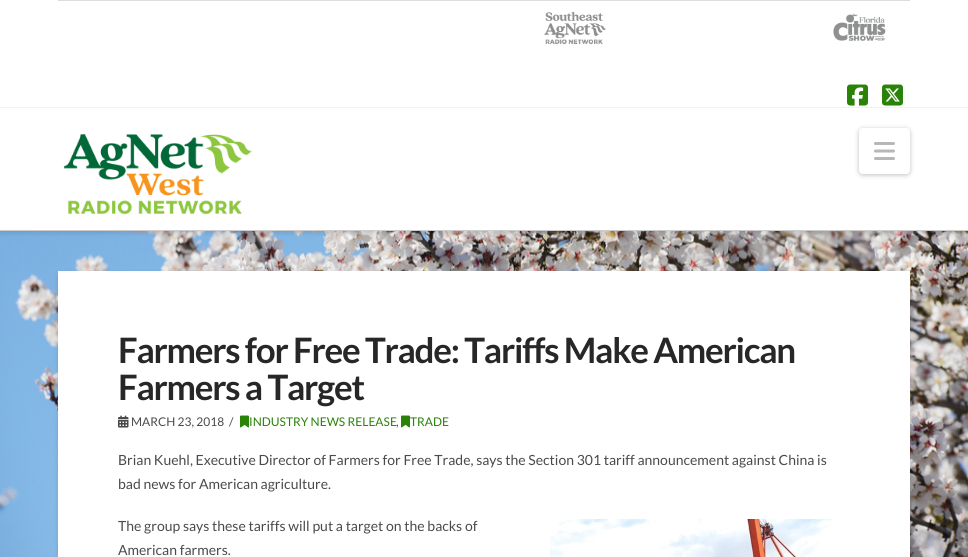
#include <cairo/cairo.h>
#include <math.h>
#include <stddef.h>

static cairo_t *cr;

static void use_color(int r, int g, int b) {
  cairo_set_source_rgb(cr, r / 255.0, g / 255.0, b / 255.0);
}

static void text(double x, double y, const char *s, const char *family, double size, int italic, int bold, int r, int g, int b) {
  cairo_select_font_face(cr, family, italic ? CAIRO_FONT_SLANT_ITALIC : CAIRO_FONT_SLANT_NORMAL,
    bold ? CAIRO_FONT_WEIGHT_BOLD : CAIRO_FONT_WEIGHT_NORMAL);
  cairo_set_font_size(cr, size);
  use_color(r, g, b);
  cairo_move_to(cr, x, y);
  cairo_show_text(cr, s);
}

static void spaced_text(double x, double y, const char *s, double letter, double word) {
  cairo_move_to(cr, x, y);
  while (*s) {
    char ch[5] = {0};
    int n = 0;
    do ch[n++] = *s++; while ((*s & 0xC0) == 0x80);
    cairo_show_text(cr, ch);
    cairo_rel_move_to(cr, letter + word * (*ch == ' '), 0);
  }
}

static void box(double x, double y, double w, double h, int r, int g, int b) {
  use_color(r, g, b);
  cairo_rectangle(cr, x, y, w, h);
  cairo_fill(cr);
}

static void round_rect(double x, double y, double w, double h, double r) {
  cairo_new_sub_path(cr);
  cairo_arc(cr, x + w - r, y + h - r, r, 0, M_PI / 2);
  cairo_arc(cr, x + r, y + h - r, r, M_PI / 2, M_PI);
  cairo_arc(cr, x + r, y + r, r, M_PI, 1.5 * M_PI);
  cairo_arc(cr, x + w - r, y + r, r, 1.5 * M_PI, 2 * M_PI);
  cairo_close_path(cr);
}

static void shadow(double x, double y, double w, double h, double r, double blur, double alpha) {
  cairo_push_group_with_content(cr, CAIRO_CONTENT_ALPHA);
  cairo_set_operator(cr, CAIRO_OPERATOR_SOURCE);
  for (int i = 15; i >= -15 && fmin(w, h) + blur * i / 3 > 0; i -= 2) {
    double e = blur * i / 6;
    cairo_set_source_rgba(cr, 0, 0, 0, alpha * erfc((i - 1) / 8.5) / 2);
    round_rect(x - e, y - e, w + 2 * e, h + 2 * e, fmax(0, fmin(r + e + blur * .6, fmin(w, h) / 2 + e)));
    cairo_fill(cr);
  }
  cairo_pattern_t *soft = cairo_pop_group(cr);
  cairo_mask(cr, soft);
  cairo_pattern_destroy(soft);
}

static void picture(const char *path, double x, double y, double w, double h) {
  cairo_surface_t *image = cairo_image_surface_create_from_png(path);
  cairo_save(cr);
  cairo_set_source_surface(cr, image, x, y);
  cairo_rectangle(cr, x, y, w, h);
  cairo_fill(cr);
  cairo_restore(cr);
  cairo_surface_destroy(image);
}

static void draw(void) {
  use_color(255, 255, 255);
  cairo_paint(cr);
  picture("img_01.png", 0, 231, 968, 326);
  use_color(0, 0, 0);
  shadow(0, 110, 968, 123, 0, 2.5, 0.13);
  box(5, 106, 958, 1, 255, 255, 255);
  box(0, 107, 968, 1, 242, 242, 242);
  box(58, 0, 852, 1, 221, 221, 221);
  picture("img_02.png", 833, 13, 53, 28);
  picture("img_03.png", 544, 12, 62, 33);
  picture("img_04.png", 847, 84, 21, 22);
  picture("img_05.png", 882, 84, 21, 22);
  box(0, 108, 968, 122, 255, 255, 255);
  box(0, 230, 968, 1, 204, 204, 204);
  picture("img_06.png", 63, 133, 189, 82);
  use_color(0, 0, 0);
  shadow(859, 129, 51, 46, 4, 2.5, 0.25);
  use_color(255, 255, 255);
  round_rect(859, 128, 51, 46, 4);
  cairo_fill(cr);
  picture("img_07.png", 874, 142, 21, 18);
  use_color(0, 0, 0);
  shadow(58, 273, 852, 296, 4, 2.5, 0.13);
  box(58, 271, 852, 286, 255, 255, 255);
  picture("img_08.png", 118, 415, 11, 13);
  picture("img_09.png", 240, 415, 9, 13);
  picture("img_09.png", 401, 415, 9, 13);
  picture("img_10.png", 550, 519, 284, 38);
  cairo_select_font_face(cr, "Lato", CAIRO_FONT_SLANT_NORMAL, CAIRO_FONT_WEIGHT_BOLD);
  cairo_set_font_size(cr, 35);
  use_color(39, 39, 39);
  spaced_text(118, 363, "Farmers for Free Trade: Tariffs Make American", -1.25, 0);
  spaced_text(118, 400, "Farmers a Target", -1.25, 0);
  text(131, 426, "MARCH 23, 2018", "Lato", 12, 0, 0, 74, 74, 74);
  text(229, 426, "/", "Lato", 12, 0, 0, 74, 74, 74);
  text(249, 426, "INDUSTRY NEWS RELEASE", "Lato", 12, 0, 0, 43, 130, 9);
  text(396, 426, ",", "Lato", 12, 0, 0, 74, 74, 74);
  text(410, 426, "TRADE", "Lato", 12, 0, 0, 43, 130, 9);
  text(118, 465, "Brian Kuehl, Executive Director of Farmers for Free Trade, says the Section 301 tariff announcement against China is", "Lato", 14, 0, 0, 74, 74, 74);
  text(118, 489, "bad news for American agriculture.", "Lato", 14, 0, 0, 74, 74, 74);
  text(118, 531, "The group says these tariffs will put a target on the backs of", "Lato", 14, 0, 0, 74, 74, 74);
  text(118, 555, "American farmers.", "Lato", 14, 0, 0, 74, 74, 74);
}

int main(void) {
  cairo_surface_t *surface = cairo_image_surface_create(CAIRO_FORMAT_RGB24, 968, 557);
  cr = cairo_create(surface);
  cairo_font_options_t *options = cairo_font_options_create();
  cairo_font_options_set_hint_metrics(options, CAIRO_HINT_METRICS_OFF);
  cairo_font_options_set_hint_style(options, CAIRO_HINT_STYLE_NONE);
  cairo_set_font_options(cr, options);
  cairo_set_miter_limit(cr, 4);
  draw();
  cairo_surface_write_to_png(surface, "out.png");
  cairo_font_options_destroy(options);
  cairo_destroy(cr);
  cairo_surface_destroy(surface);
  return 0;
}
